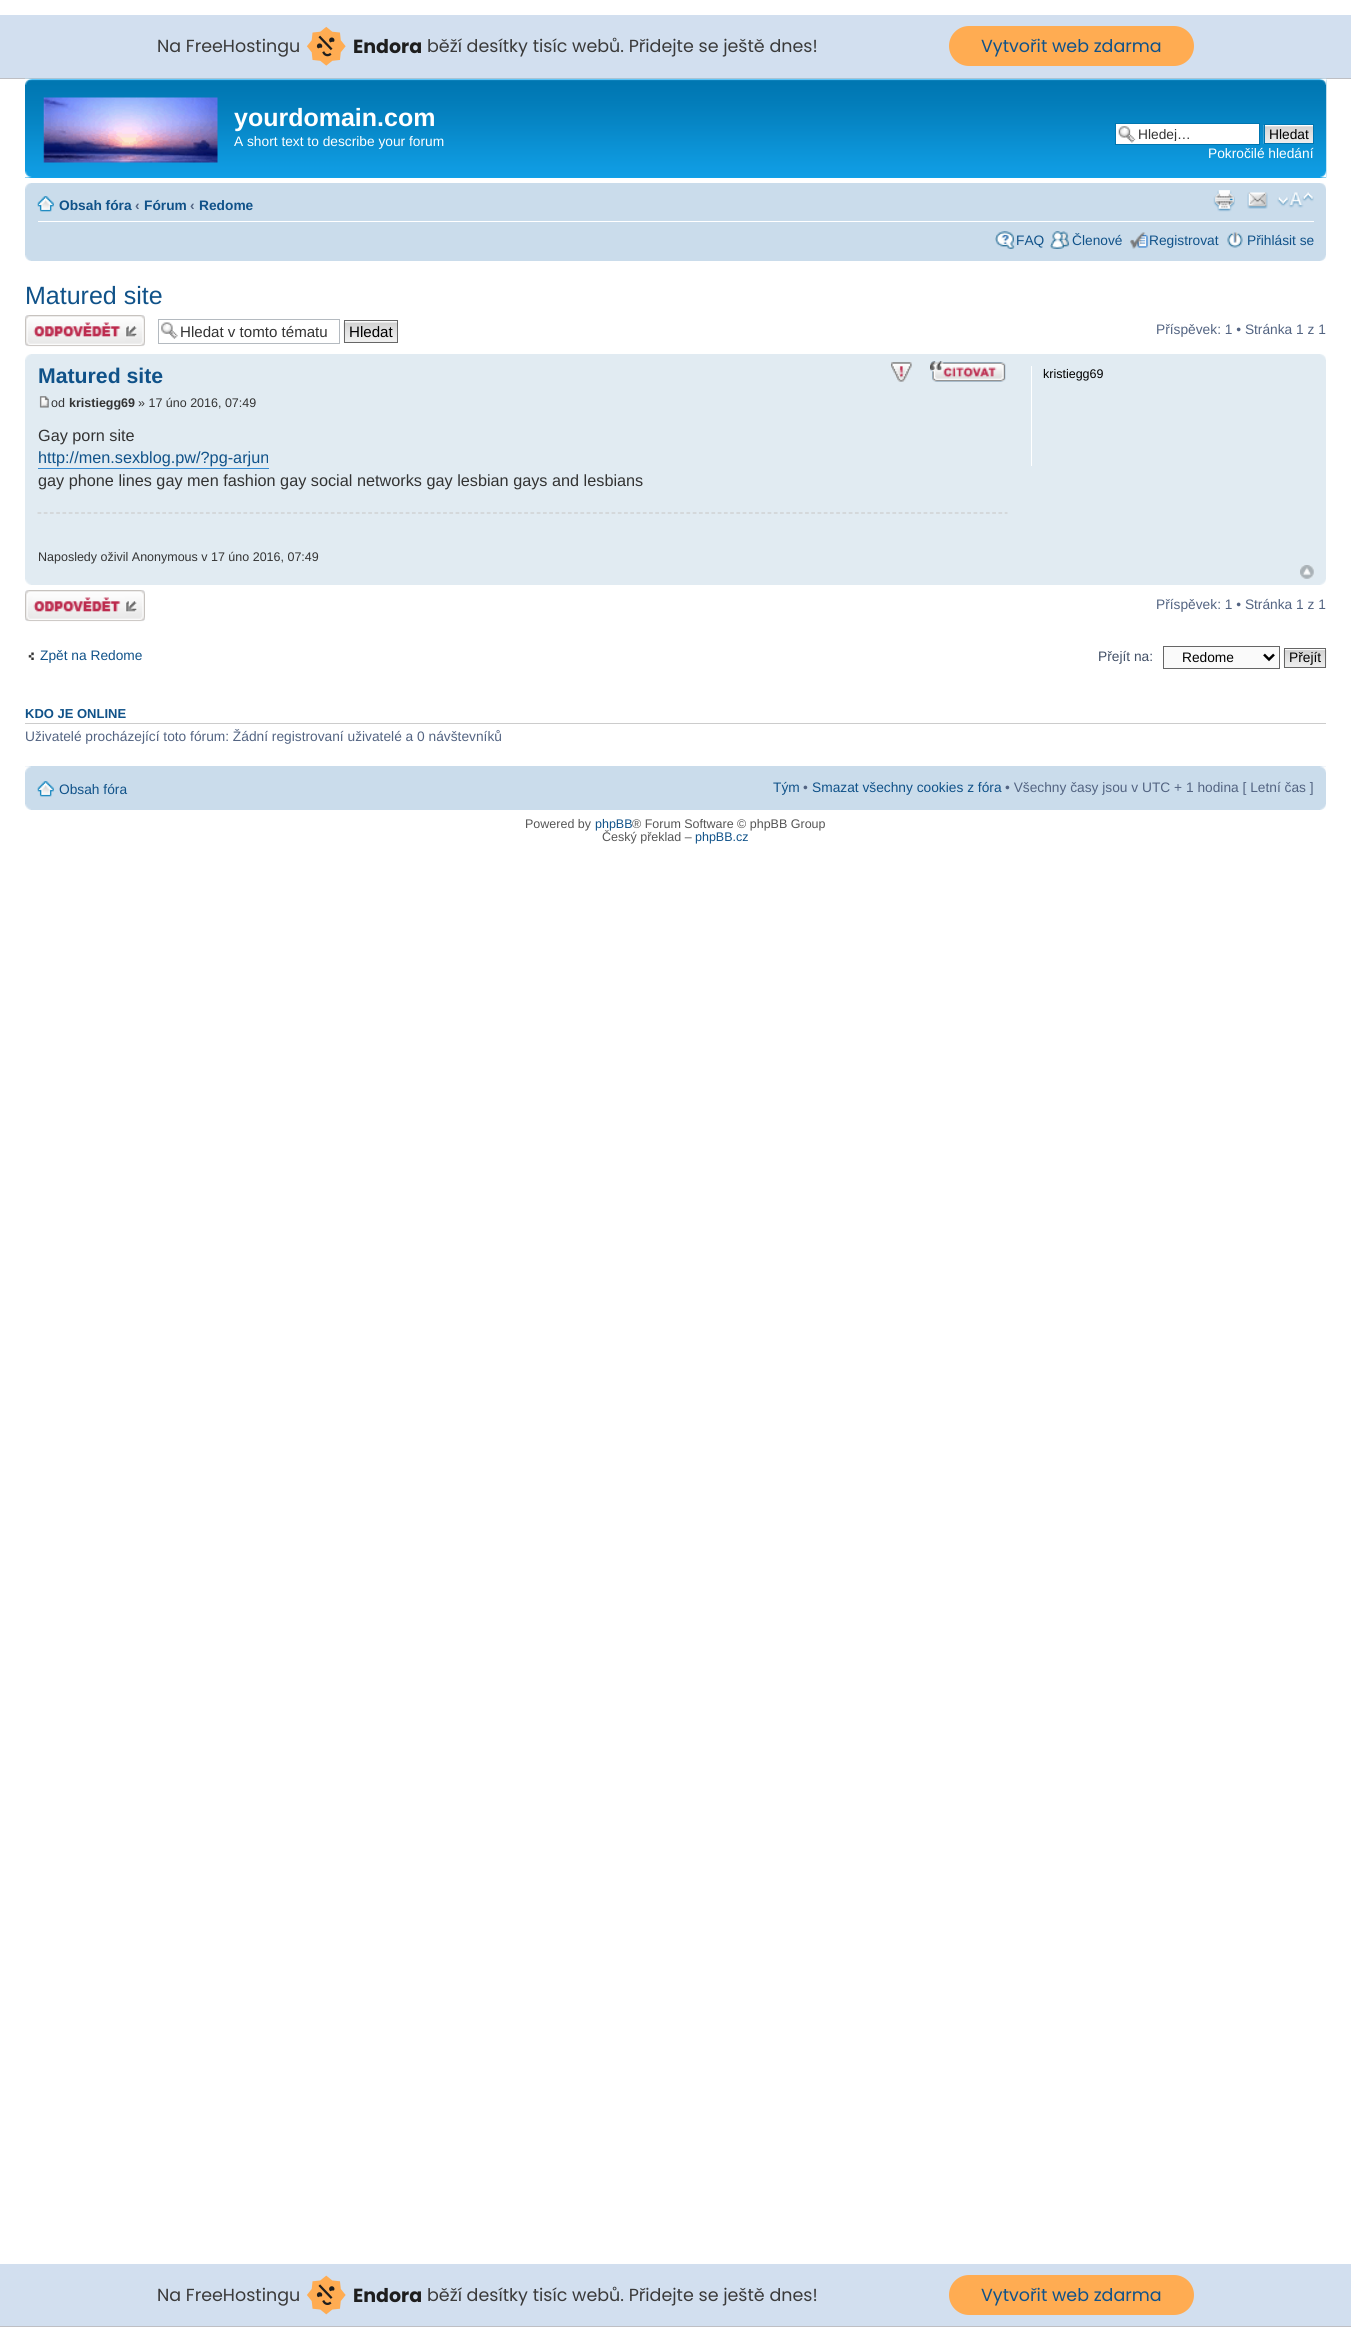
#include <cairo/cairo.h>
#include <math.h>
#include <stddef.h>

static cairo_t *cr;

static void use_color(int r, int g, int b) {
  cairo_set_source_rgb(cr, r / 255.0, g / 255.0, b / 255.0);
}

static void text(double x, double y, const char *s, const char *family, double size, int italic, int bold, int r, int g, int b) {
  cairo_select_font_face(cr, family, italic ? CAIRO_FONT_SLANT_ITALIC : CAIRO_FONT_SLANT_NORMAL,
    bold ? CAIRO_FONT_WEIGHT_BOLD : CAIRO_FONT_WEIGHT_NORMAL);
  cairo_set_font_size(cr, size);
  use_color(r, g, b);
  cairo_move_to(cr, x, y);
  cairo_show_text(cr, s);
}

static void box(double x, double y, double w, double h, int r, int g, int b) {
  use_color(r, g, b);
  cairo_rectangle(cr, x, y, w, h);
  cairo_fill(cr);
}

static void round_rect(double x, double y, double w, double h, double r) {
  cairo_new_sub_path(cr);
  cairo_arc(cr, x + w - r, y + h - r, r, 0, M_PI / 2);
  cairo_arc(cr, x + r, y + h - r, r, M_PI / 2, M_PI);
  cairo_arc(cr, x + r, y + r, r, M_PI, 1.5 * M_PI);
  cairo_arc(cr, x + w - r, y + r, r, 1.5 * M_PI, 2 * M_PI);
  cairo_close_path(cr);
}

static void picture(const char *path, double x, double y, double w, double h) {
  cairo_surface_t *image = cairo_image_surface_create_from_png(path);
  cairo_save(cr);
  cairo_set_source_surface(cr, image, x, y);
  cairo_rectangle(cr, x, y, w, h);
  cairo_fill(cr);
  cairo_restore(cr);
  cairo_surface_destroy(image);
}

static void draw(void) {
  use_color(255, 255, 255);
  cairo_paint(cr);
  box(0, 15, 1351, 63, 210, 223, 239);
  box(0, 78, 1351, 1, 190, 191, 196);
  picture("img_01.png", 306, 26, 40, 40);
  use_color(255, 172, 82);
  round_rect(949, 26, 245, 40, 20);
  cairo_fill(cr);
  box(25, 177, 1301, 1, 18, 163, 235);
  picture("img_02.png", 25, 78, 1302, 100);
  picture("img_03.png", 25, 78, 7, 7);
  picture("img_04.png", 1319, 78, 8, 7);
  picture("img_05.png", 43, 97, 175, 66);
  box(1116, 124, 143, 20, 255, 255, 255);
  picture("img_06.png", 1118, 126, 18, 17);
  cairo_rectangle(cr, 1115.5, 123.5, 144, 21);
  use_color(0, 117, 176);
  cairo_set_line_width(cr, 1);
  cairo_stroke(cr);
  picture("img_07.png", 1263, 125, 50, 19);
  cairo_rectangle(cr, 1264.5, 124.5, 49, 19);
  cairo_stroke(cr);
  picture("img_08.png", 25, 171, 7, 7);
  picture("img_09.png", 1320, 171, 7, 7);
  box(25, 183, 1301, 78, 202, 220, 235);
  picture("img_10.png", 25, 183, 6, 6);
  picture("img_11.png", 1320, 183, 6, 6);
  box(38, 221, 1276, 1, 255, 255, 255);
  picture("img_12.png", 37, 196, 17, 16);
  picture("img_13.png", 1213, 190, 22, 22);
  picture("img_14.png", 1247, 192, 21, 17);
  picture("img_15.png", 1277, 192, 37, 16);
  picture("img_16.png", 995, 231, 20, 18);
  picture("img_17.png", 1050, 231, 20, 18);
  picture("img_18.png", 1130, 232, 18, 17);
  picture("img_19.png", 1227, 232, 16, 16);
  picture("img_20.png", 25, 255, 6, 6);
  picture("img_21.png", 1320, 255, 6, 6);
  picture("img_22.png", 25, 315, 120, 32);
  picture("img_23.png", 161, 322, 17, 17);
  cairo_rectangle(cr, 158.5, 319.5, 181, 24);
  use_color(180, 186, 192);
  cairo_stroke(cr);
  box(345, 321, 52, 1, 250, 250, 250);
  picture("img_24.png", 343, 322, 54, 21);
  cairo_rectangle(cr, 344.5, 320.5, 53, 22);
  use_color(102, 102, 102);
  cairo_stroke(cr);
  box(25, 354, 1301, 231, 225, 235, 242);
  picture("img_25.png", 25, 354, 6, 6);
  picture("img_26.png", 1320, 354, 6, 6);
  picture("img_27.png", 891, 362, 21, 20);
  picture("img_28.png", 891, 362, 21, 20);
  picture("img_29.png", 930, 361, 76, 21);
  picture("img_30.png", 930, 361, 76, 21);
  picture("img_31.png", 39, 396, 10, 12);
  box(38, 468, 231, 1, 54, 138, 210);
  cairo_new_path(cr);
  cairo_move_to(cr, 37.5, 513);
  cairo_line_to(cr, 1007.5, 513);
  use_color(204, 204, 204);
  cairo_set_line_width(cr, 1.2);
  cairo_set_dash(cr, (double[]){3.75, 2.49}, 2, 0);
  cairo_stroke(cr);
  box(1031, 366, 1, 100, 255, 255, 255);
  picture("img_32.png", 1300, 565, 14, 14);
  picture("img_33.png", 25, 579, 6, 6);
  picture("img_34.png", 1320, 579, 6, 6);
  picture("img_22.png", 25, 590, 120, 32);
  picture("img_35.png", 28, 652, 6, 8);
  use_color(250, 250, 250);
  cairo_rectangle(cr, 1163.5, 646.5, 116, 22);
  cairo_fill_preserve(cr);
  use_color(102, 102, 102);
  cairo_set_line_width(cr, 1);
  cairo_set_dash(cr, NULL, 0, 0);
  cairo_stroke(cr);
  cairo_new_path(cr);
  cairo_move_to(cr, 1264, 654.5);
  cairo_line_to(cr, 1269, 659.5);
  cairo_line_to(cr, 1274, 654.5);
  use_color(0, 0, 0);
  cairo_set_line_width(cr, 2.5);
  cairo_stroke(cr);
  box(1285, 649, 40, 1, 250, 250, 250);
  picture("img_36.png", 1283, 650, 44, 18);
  cairo_rectangle(cr, 1284.5, 648.5, 41, 19);
  use_color(102, 102, 102);
  cairo_set_line_width(cr, 1);
  cairo_stroke(cr);
  box(25, 723, 1301, 1, 204, 204, 204);
  box(25, 766, 1301, 44, 202, 220, 235);
  picture("img_37.png", 25, 766, 6, 7);
  picture("img_38.png", 1320, 766, 6, 7);
  picture("img_39.png", 37, 781, 17, 16);
  picture("img_40.png", 25, 804, 6, 6);
  picture("img_41.png", 1320, 804, 6, 6);
  box(0, 2264, 1351, 62, 210, 223, 239);
  box(0, 2326, 1351, 1, 190, 191, 196);
  picture("img_42.png", 307, 2275, 39, 40);
  use_color(255, 172, 82);
  round_rect(949, 2275, 245, 40, 20);
  cairo_fill(cr);
  text(157, 52, "Na FreeHostingu", "Poppins", 17.5, 0, 0, 58, 58, 58);
  text(353, 53, "Endora", "Poppins", 19, 0, 1, 30, 30, 30);
  text(427, 52, "běží desítky tisíc webů. Přidejte se ještě dnes!", "Poppins", 17.5, 0, 0, 58, 58, 58);
  text(981, 52, "Vytvořit web zdarma", "Poppins", 17.5, 0, 0, 16, 82, 137);
  text(234, 126, "yourdomain.com", "Liberation Sans", 25, 0, 1, 255, 255, 255);
  text(234, 146, "A short text to describe your forum", "Liberation Sans", 13.75, 0, 0, 255, 255, 255);
  cairo_save(cr);
  cairo_rectangle(cr, 1138, 126, 118, 15);
  cairo_clip(cr);
  text(1138, 139, "Hledej…", "Liberation Sans", 13.75, 0, 0, 51, 51, 51);
  cairo_restore(cr);
  text(1269, 139, "Hledat", "Liberation Sans", 13.75, 0, 0, 0, 0, 0);
  text(1208, 158, "Pokročilé hledání", "Liberation Sans", 13.75, 0, 0, 255, 255, 255);
  text(59, 210, "Obsah fóra", "Liberation Sans", 13.75, 0, 1, 16, 82, 137);
  text(135, 210, "‹", "Liberation Sans", 13.75, 0, 1, 83, 100, 130);
  text(144, 210, "Fórum", "Liberation Sans", 13.75, 0, 1, 16, 82, 137);
  text(190, 210, "‹", "Liberation Sans", 13.75, 0, 1, 83, 100, 130);
  text(199, 210, "Redome", "Liberation Sans", 13.75, 0, 1, 16, 82, 137);
  text(1016, 245, "FAQ", "Liberation Sans", 13.75, 0, 0, 16, 82, 137);
  text(1072, 245, "Členové", "Liberation Sans", 13.75, 0, 0, 16, 82, 137);
  text(1149, 245, "Registrovat", "Liberation Sans", 13.75, 0, 0, 16, 82, 137);
  text(1247, 245, "Přihlásit se", "Liberation Sans", 13.75, 0, 0, 16, 82, 137);
  text(25, 304, "Matured site", "Liberation Sans", 25, 0, 0, 16, 82, 137);
  text(180, 337, "Hledat v tomto tématu", "Liberation Sans", 15.1, 0, 0, 51, 51, 51);
  text(349, 337, "Hledat", "Liberation Sans", 15.1, 0, 0, 0, 0, 0);
  text(1156, 334, "Příspěvek: 1 • Stránka 1 z 1", "Liberation Sans", 13.75, 0, 0, 83, 100, 130);
  text(38, 383, "Matured site", "Liberation Sans", 21.25, 0, 1, 16, 82, 137);
  text(51, 407, "od", "Liberation Sans", 12.5, 0, 0, 51, 51, 51);
  text(69, 407, "kristiegg69", "Liberation Sans", 12.5, 0, 1, 51, 51, 51);
  text(138, 407, "» 17 úno 2016, 07:49", "Liberation Sans", 12.5, 0, 0, 51, 51, 51);
  text(38, 441, "Gay porn site", "Liberation Sans", 16.25, 0, 0, 51, 51, 51);
  text(38, 463, "http://men.sexblog.pw/?pg-arjun", "Liberation Sans", 16.25, 0, 0, 16, 82, 137);
  text(38, 486, "gay phone lines gay men fashion gay social networks gay lesbian gays and lesbians", "Liberation Sans", 16.25, 0, 0, 51, 51, 51);
  text(38, 561, "Naposledy oživil Anonymous v 17 úno 2016, 07:49", "Liberation Sans", 12.5, 0, 0, 51, 51, 51);
  text(1043, 378, "kristiegg69", "Liberation Sans", 12.5, 0, 0, 0, 0, 0);
  text(1156, 609, "Příspěvek: 1 • Stránka 1 z 1", "Liberation Sans", 13.75, 0, 0, 83, 100, 130);
  text(40, 660, "Zpět na Redome", "Liberation Sans", 13.75, 0, 0, 16, 82, 137);
  text(1098, 661, "Přejít na:", "Liberation Sans", 13.75, 0, 0, 66, 80, 103);
  text(1182, 662, "Redome", "Liberation Sans", 13.75, 0, 0, 0, 0, 0);
  text(1289, 662, "Přejít", "Liberation Sans", 13.75, 0, 0, 0, 0, 0);
  text(25, 718, "KDO JE ONLINE", "Liberation Sans", 13, 0, 1, 16, 82, 137);
  text(25, 741, "Uživatelé procházející toto fórum: Žádní registrovaní uživatelé a 0 návštevníků", "Liberation Sans", 13.75, 0, 0, 83, 100, 130);
  text(59, 794, "Obsah fóra", "Liberation Sans", 13.75, 0, 0, 16, 82, 137);
  text(773, 792, "Tým", "Liberation Sans", 13.75, 0, 0, 16, 82, 137);
  text(803, 792, "•", "Liberation Sans", 13.75, 0, 0, 83, 100, 130);
  text(812, 792, "Smazat všechny cookies z fóra", "Liberation Sans", 13.75, 0, 0, 16, 82, 137);
  text(1005, 792, "• Všechny časy jsou v UTC + 1 hodina [ Letní čas ]", "Liberation Sans", 13.75, 0, 0, 83, 100, 130);
  text(525, 828, "Powered by", "Liberation Sans", 12.5, 0, 0, 85, 85, 85);
  text(595, 828, "phpBB", "Liberation Sans", 12.5, 0, 0, 16, 82, 137);
  text(632, 828, "® Forum Software © phpBB Group", "Liberation Sans", 12.5, 0, 0, 85, 85, 85);
  text(602, 841, "Český překlad –", "Liberation Sans", 12.5, 0, 0, 85, 85, 85);
  text(695, 841, "phpBB.cz", "Liberation Sans", 12.5, 0, 0, 16, 82, 137);
  text(157, 2301, "Na FreeHostingu", "Poppins", 17.5, 0, 0, 58, 58, 58);
  text(353, 2302, "Endora", "Poppins", 19, 0, 1, 30, 30, 30);
  text(427, 2301, "běží desítky tisíc webů. Přidejte se ještě dnes!", "Poppins", 17.5, 0, 0, 58, 58, 58);
  text(981, 2301, "Vytvořit web zdarma", "Poppins", 17.5, 0, 0, 16, 82, 137);
}

int main(void) {
  cairo_surface_t *surface = cairo_image_surface_create(CAIRO_FORMAT_RGB24, 1351, 2327);
  cr = cairo_create(surface);
  cairo_font_options_t *options = cairo_font_options_create();
  cairo_font_options_set_hint_metrics(options, CAIRO_HINT_METRICS_OFF);
  cairo_font_options_set_hint_style(options, CAIRO_HINT_STYLE_NONE);
  cairo_set_font_options(cr, options);
  cairo_set_miter_limit(cr, 4);
  draw();
  cairo_surface_write_to_png(surface, "out.png");
  cairo_font_options_destroy(options);
  cairo_destroy(cr);
  cairo_surface_destroy(surface);
  return 0;
}
